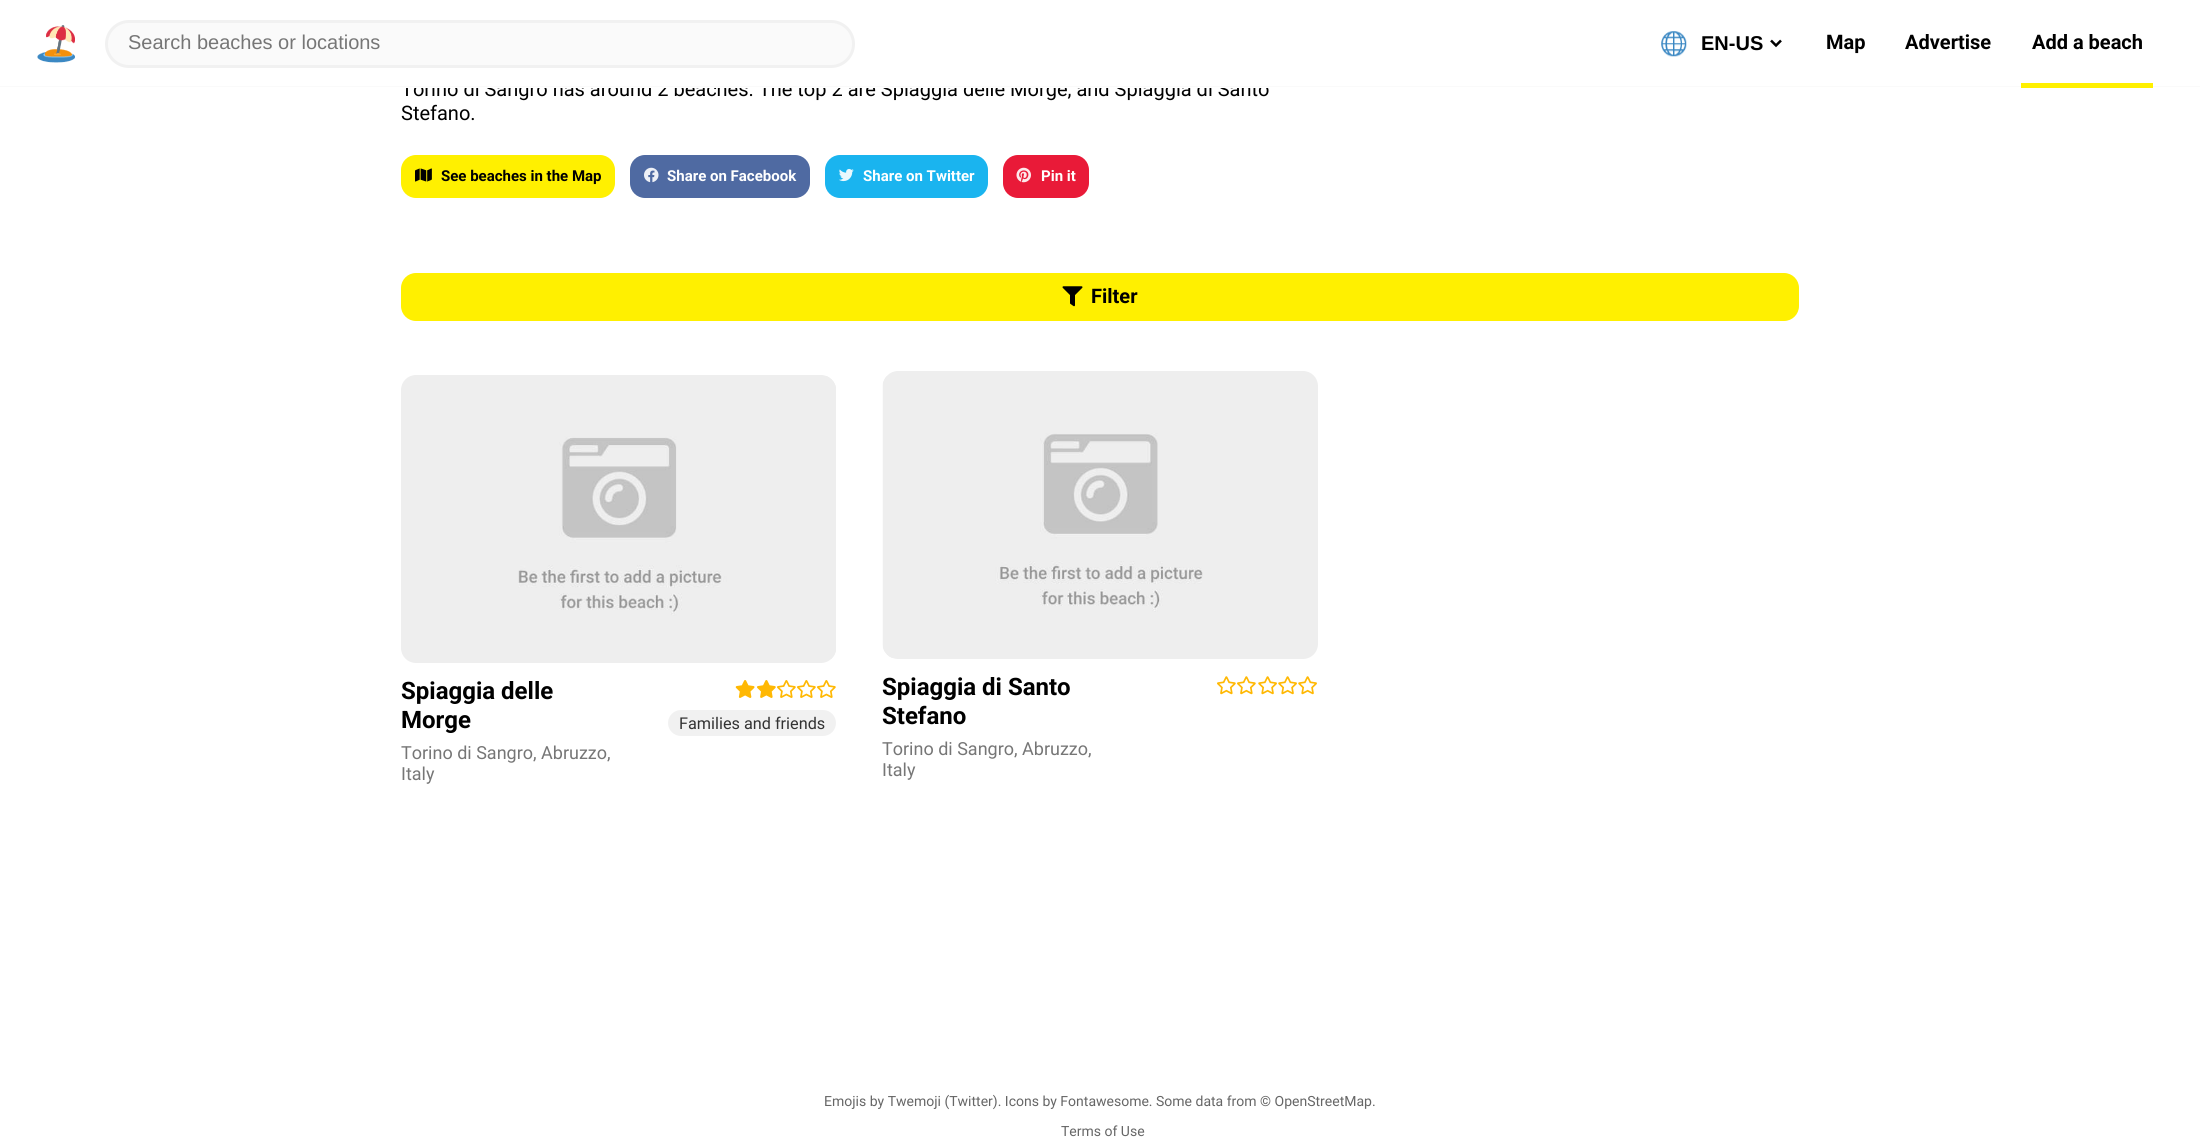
#include <cairo/cairo.h>
#include <math.h>
#include <stddef.h>

static cairo_t *cr;

static void use_color(int r, int g, int b) {
  cairo_set_source_rgb(cr, r / 255.0, g / 255.0, b / 255.0);
}

static void text(double x, double y, const char *s, const char *family, double size, int italic, int bold, int r, int g, int b) {
  cairo_select_font_face(cr, family, italic ? CAIRO_FONT_SLANT_ITALIC : CAIRO_FONT_SLANT_NORMAL,
    bold ? CAIRO_FONT_WEIGHT_BOLD : CAIRO_FONT_WEIGHT_NORMAL);
  cairo_set_font_size(cr, size);
  use_color(r, g, b);
  cairo_move_to(cr, x, y);
  cairo_show_text(cr, s);
}

static void box(double x, double y, double w, double h, int r, int g, int b) {
  use_color(r, g, b);
  cairo_rectangle(cr, x, y, w, h);
  cairo_fill(cr);
}

static void round_rect(double x, double y, double w, double h, double r) {
  cairo_new_sub_path(cr);
  cairo_arc(cr, x + w - r, y + h - r, r, 0, M_PI / 2);
  cairo_arc(cr, x + r, y + h - r, r, M_PI / 2, M_PI);
  cairo_arc(cr, x + r, y + r, r, M_PI, 1.5 * M_PI);
  cairo_arc(cr, x + w - r, y + r, r, 1.5 * M_PI, 2 * M_PI);
  cairo_close_path(cr);
}

static void picture(const char *path, double x, double y, double w, double h) {
  cairo_surface_t *image = cairo_image_surface_create_from_png(path);
  cairo_save(cr);
  cairo_set_source_surface(cr, image, x, y);
  cairo_rectangle(cr, x, y, w, h);
  cairo_fill(cr);
  cairo_restore(cr);
  cairo_surface_destroy(image);
}

static void draw(void) {
  use_color(255, 255, 255);
  cairo_paint(cr);
  picture("img_01.png", 37, 25, 38, 38);
  use_color(250, 250, 250);
  round_rect(106.5, 21.5, 747, 45, 22.5);
  cairo_fill_preserve(cr);
  use_color(241, 241, 241);
  cairo_set_line_width(cr, 3);
  cairo_stroke(cr);
  picture("img_02.png", 1661, 31, 26, 26);
  cairo_new_path(cr);
  cairo_move_to(cr, 1771, 40.5);
  cairo_line_to(cr, 1776, 45.5);
  cairo_line_to(cr, 1781, 40.5);
  use_color(0, 0, 0);
  cairo_set_line_width(cr, 2.5);
  cairo_stroke(cr);
  use_color(255, 240, 0);
  round_rect(401, 155, 214, 43, 15);
  cairo_fill(cr);
  picture("img_03.png", 415, 168, 17, 14);
  use_color(79, 106, 162);
  round_rect(630, 155, 180, 43, 15);
  cairo_fill(cr);
  picture("img_04.png", 644, 167, 15, 16);
  use_color(26, 180, 239);
  round_rect(825, 155, 163, 43, 15);
  cairo_fill(cr);
  picture("img_05.png", 839, 168, 15, 14);
  use_color(233, 26, 56);
  round_rect(1003, 155, 86, 43, 15);
  cairo_fill(cr);
  picture("img_06.png", 1016, 167, 15, 16);
  use_color(255, 240, 0);
  round_rect(401, 273, 1398, 48, 15);
  cairo_fill(cr);
  picture("img_07.png", 1062, 286, 21, 21);
  use_color(238, 238, 238);
  round_rect(401, 375, 435, 288, 15);
  cairo_fill(cr);
  picture("img_08.png", 518, 376, 318, 283);
  picture("img_09.png", 735, 680, 20, 18);
  picture("img_10.png", 757, 680, 19, 18);
  picture("img_11.png", 777, 680, 19, 18);
  picture("img_11.png", 797, 680, 19, 18);
  picture("img_11.png", 817, 680, 19, 18);
  use_color(241, 241, 241);
  round_rect(668, 710, 168, 26, 13);
  cairo_fill(cr);
  use_color(238, 238, 238);
  round_rect(883, 371, 435, 288, 15);
  cairo_fill(cr);
  picture("img_12.png", 882, 376, 321, 282);
  picture("img_13.png", 1217, 676, 19, 19);
  picture("img_13.png", 1237, 676, 19, 19);
  picture("img_14.png", 1258, 676, 19, 19);
  picture("img_14.png", 1278, 676, 19, 19);
  picture("img_14.png", 1298, 676, 19, 19);
  text(128, 49, "Search beaches or locations", "Liberation Sans", 20, 0, 0, 118, 118, 118);
  text(1701, 50, "EN-US", "Liberation Sans", 20, 0, 1, 0, 0, 0);
  text(1826, 49, "Map", "Roboto", 20, 0, 1, 0, 0, 0);
  text(1905, 49, "Advertise", "Roboto", 20, 0, 1, 0, 0, 0);
  text(2032, 49, "Add a beach", "Roboto", 20, 0, 1, 0, 0, 0);
  text(401, 96, "Torino di Sangro has around 2 beaches. The top 2 are Spiaggia delle Morge, and Spiaggia di Santo", "Roboto", 20, 0, 0, 0, 0, 0);
  box(401, 81, 868, 7, 255, 255, 255);
  box(0, 86, 2200, 1, 250, 250, 250);
  box(2021, 83, 132, 5, 255, 240, 0);
  text(401, 120, "Stefano.", "Roboto", 20, 0, 0, 0, 0, 0);
  text(441, 181, "See beaches in the Map", "Roboto", 15, 0, 1, 0, 0, 0);
  text(667, 181, "Share on Facebook", "Roboto", 15, 0, 1, 255, 255, 255);
  text(863, 181, "Share on Twitter", "Roboto", 15, 0, 1, 255, 255, 255);
  text(1041, 181, "Pin it", "Roboto", 15, 0, 1, 255, 255, 255);
  text(1091, 303, "Filter", "Roboto", 20, 0, 1, 0, 0, 0);
  text(401, 699, "Spiaggia delle", "Roboto", 24, 0, 1, 0, 0, 0);
  text(401, 728, "Morge", "Roboto", 24, 0, 1, 0, 0, 0);
  text(401, 759, "Torino di Sangro, Abruzzo,", "Roboto", 18, 0, 0, 118, 118, 118);
  text(401, 780, "Italy", "Roboto", 18, 0, 0, 118, 118, 118);
  text(679, 729, "Families and friends", "Roboto", 16.25, 0, 0, 51, 51, 51);
  text(882, 695, "Spiaggia di Santo", "Roboto", 24, 0, 1, 0, 0, 0);
  text(882, 724, "Stefano", "Roboto", 24, 0, 1, 0, 0, 0);
  text(882, 755, "Torino di Sangro, Abruzzo,", "Roboto", 18, 0, 0, 118, 118, 118);
  text(882, 776, "Italy", "Roboto", 18, 0, 0, 118, 118, 118);
  text(824, 1106, "Emojis by Twemoji (Twitter). Icons by Fontawesome. Some data from © OpenStreetMap.", "Roboto", 14, 0, 0, 102, 102, 102);
  text(1061, 1136, "Terms of Use", "Roboto", 14, 0, 0, 102, 102, 102);
}

int main(void) {
  cairo_surface_t *surface = cairo_image_surface_create(CAIRO_FORMAT_RGB24, 2200, 1144);
  cr = cairo_create(surface);
  cairo_font_options_t *options = cairo_font_options_create();
  cairo_font_options_set_hint_metrics(options, CAIRO_HINT_METRICS_OFF);
  cairo_font_options_set_hint_style(options, CAIRO_HINT_STYLE_NONE);
  cairo_set_font_options(cr, options);
  cairo_set_miter_limit(cr, 4);
  draw();
  cairo_surface_write_to_png(surface, "out.png");
  cairo_font_options_destroy(options);
  cairo_destroy(cr);
  cairo_surface_destroy(surface);
  return 0;
}
